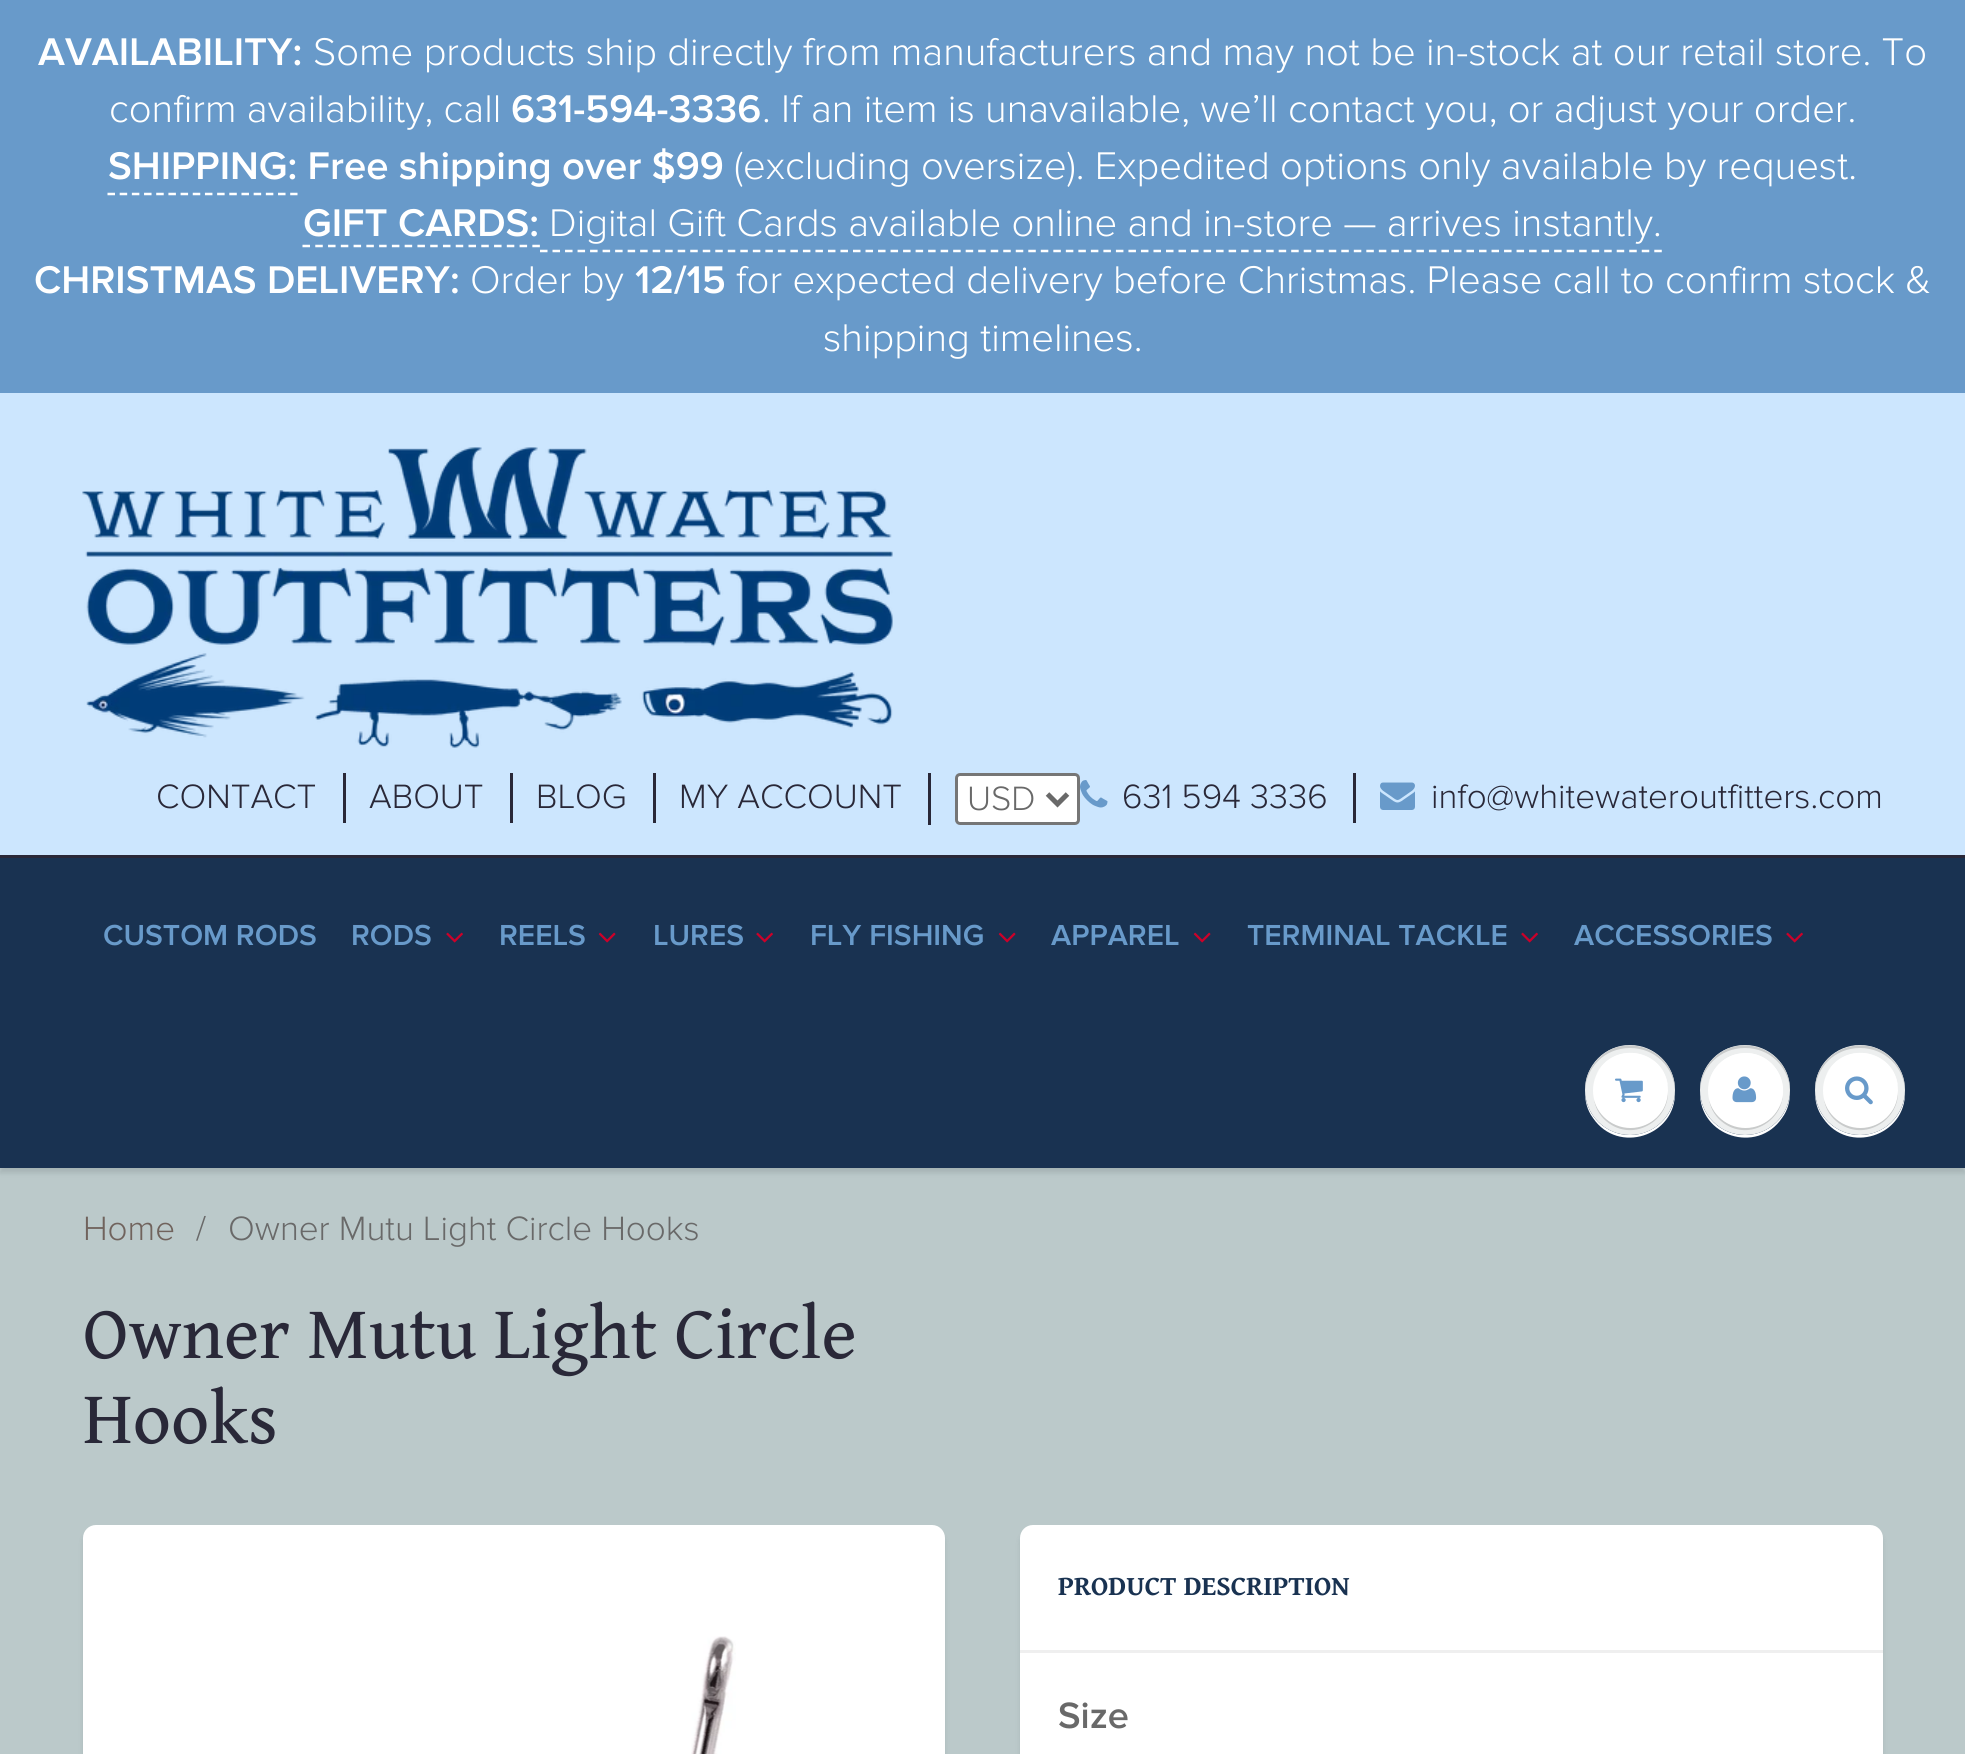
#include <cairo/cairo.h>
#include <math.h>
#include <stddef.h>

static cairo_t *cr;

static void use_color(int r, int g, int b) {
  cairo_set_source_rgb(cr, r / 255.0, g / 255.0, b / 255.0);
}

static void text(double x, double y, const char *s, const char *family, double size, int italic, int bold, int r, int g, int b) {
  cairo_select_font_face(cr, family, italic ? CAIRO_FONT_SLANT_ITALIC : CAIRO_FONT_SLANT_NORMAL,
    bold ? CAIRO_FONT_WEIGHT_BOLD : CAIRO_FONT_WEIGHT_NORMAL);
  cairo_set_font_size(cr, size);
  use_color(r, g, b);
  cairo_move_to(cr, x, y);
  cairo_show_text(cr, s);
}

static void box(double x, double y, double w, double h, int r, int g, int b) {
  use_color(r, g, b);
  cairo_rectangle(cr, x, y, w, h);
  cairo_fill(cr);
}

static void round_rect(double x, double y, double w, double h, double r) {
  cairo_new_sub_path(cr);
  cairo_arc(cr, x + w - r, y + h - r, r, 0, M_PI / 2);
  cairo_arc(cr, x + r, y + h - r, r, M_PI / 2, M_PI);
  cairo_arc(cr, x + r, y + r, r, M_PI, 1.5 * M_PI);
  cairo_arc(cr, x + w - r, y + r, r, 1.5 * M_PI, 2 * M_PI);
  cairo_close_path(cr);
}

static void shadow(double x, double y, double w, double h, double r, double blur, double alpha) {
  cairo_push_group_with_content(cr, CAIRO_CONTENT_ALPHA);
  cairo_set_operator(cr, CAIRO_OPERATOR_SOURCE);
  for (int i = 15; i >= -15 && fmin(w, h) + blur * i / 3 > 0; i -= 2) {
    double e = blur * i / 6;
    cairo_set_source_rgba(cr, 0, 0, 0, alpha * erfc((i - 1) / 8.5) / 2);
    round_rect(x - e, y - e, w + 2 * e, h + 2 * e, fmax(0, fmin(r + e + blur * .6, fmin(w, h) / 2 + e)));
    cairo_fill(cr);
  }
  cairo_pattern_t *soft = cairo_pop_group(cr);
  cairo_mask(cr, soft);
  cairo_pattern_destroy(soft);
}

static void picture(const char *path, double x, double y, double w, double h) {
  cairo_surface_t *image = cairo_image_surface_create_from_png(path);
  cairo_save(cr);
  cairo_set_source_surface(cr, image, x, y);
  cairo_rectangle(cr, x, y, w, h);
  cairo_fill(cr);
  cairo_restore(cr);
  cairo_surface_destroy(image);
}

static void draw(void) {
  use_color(104, 154, 202);
  cairo_paint(cr);
  cairo_new_path(cr);
  cairo_move_to(cr, 107.5, 194);
  cairo_line_to(cr, 297.5, 194);
  use_color(255, 255, 255);
  cairo_set_line_width(cr, 2.5);
  cairo_set_dash(cr, (double[]){7.5, 4.68}, 2, 0);
  cairo_stroke(cr);
  cairo_new_path(cr);
  cairo_move_to(cr, 302.5, 246);
  cairo_line_to(cr, 540, 246);
  cairo_set_dash(cr, (double[]){7.5, 5.27}, 2, 0);
  cairo_stroke(cr);
  cairo_new_path(cr);
  cairo_move_to(cr, 540, 251);
  cairo_line_to(cr, 1662.5, 251);
  cairo_set_dash(cr, (double[]){7.5, 5.02}, 2, 0);
  cairo_stroke(cr);
  box(0, 393, 1965, 462, 204, 230, 254);
  picture("img_01.png", 82, 447, 811, 301);
  box(343, 773, 3, 50, 41, 40, 56);
  box(510, 773, 3, 50, 41, 40, 56);
  box(653, 773, 3, 50, 41, 40, 56);
  box(928, 773, 3, 52, 41, 40, 56);
  use_color(255, 255, 255);
  round_rect(956.5, 774.5, 122, 49, 3.5);
  cairo_fill_preserve(cr);
  use_color(118, 118, 118);
  cairo_set_line_width(cr, 3);
  cairo_set_dash(cr, NULL, 0, 0);
  cairo_stroke(cr);
  cairo_new_path(cr);
  cairo_move_to(cr, 1047.5, 794);
  cairo_line_to(cr, 1057.5, 804);
  cairo_line_to(cr, 1067.5, 794);
  use_color(105, 105, 105);
  cairo_set_line_width(cr, 5);
  cairo_stroke(cr);
  picture("img_02.png", 1080, 780, 28, 28);
  box(1353, 773, 3, 50, 41, 40, 56);
  picture("img_03.png", 1380, 782, 35, 28);
  box(0, 1168, 1965, 586, 187, 201, 202);
  use_color(11, 25, 28);
  shadow(0, 860, 1965, 313, 0, 2.5, 0.12);
  box(0, 858, 1965, 310, 25, 50, 81);
  box(0, 855, 1965, 3, 41, 40, 56);
  picture("img_04.png", 446, 932, 17, 11);
  picture("img_05.png", 598, 932, 18, 11);
  picture("img_04.png", 756, 932, 17, 11);
  picture("img_05.png", 998, 932, 18, 11);
  picture("img_05.png", 1193, 932, 18, 11);
  picture("img_04.png", 1521, 932, 17, 11);
  picture("img_04.png", 1786, 932, 17, 11);
  use_color(255, 255, 255);
  cairo_new_path(cr);
  cairo_move_to(cr, 1585, 1092);
  cairo_curve_to(cr, 1585, 1101, 1587, 1110, 1593, 1118);
  cairo_curve_to(cr, 1618, 1155, 1676, 1136, 1675, 1092);
  cairo_curve_to(cr, 1674, 1116, 1654, 1135, 1630, 1135);
  cairo_curve_to(cr, 1606, 1135, 1586, 1116, 1585, 1092);
  cairo_close_path(cr);
  cairo_fill(cr);
  use_color(237, 239, 239);
  cairo_arc(cr, 1630, 1090, 45, 0, 2 * M_PI);
  cairo_fill(cr);
  use_color(201, 203, 203);
  cairo_new_path(cr);
  cairo_move_to(cr, 1630, 1048);
  cairo_curve_to(cr, 1655, 1048, 1674, 1067, 1675, 1091);
  cairo_curve_to(cr, 1676, 1047, 1618, 1028, 1593, 1065);
  cairo_curve_to(cr, 1587, 1073, 1585, 1082, 1585, 1091);
  cairo_curve_to(cr, 1586, 1067, 1605, 1048, 1630, 1048);
  cairo_close_path(cr);
  cairo_fill(cr);
  cairo_new_path(cr);
  cairo_move_to(cr, 1594, 1099);
  cairo_curve_to(cr, 1595, 1107, 1599, 1115, 1606, 1121);
  cairo_curve_to(cr, 1634, 1145, 1675, 1118, 1667, 1084);
  cairo_curve_to(cr, 1668, 1091, 1667, 1098, 1665, 1105);
  cairo_curve_to(cr, 1651, 1138, 1602, 1133, 1594, 1099);
  cairo_close_path(cr);
  cairo_fill(cr);
  use_color(255, 255, 255);
  cairo_arc(cr, 1630.5, 1090.5, 37.5, 0, 2 * M_PI);
  cairo_fill(cr);
  cairo_new_path(cr);
  cairo_move_to(cr, 1630, 1055);
  cairo_curve_to(cr, 1651, 1055, 1668, 1072, 1668, 1091);
  cairo_curve_to(cr, 1669, 1050, 1613, 1038, 1596, 1075);
  cairo_curve_to(cr, 1603, 1063, 1615, 1055, 1630, 1055);
  cairo_close_path(cr);
  cairo_fill(cr);
  picture("img_06.png", 1615, 1078, 28, 25);
  cairo_new_path(cr);
  cairo_move_to(cr, 1700, 1092);
  cairo_curve_to(cr, 1699, 1136, 1757, 1155, 1782, 1118);
  cairo_curve_to(cr, 1788, 1110, 1790, 1101, 1790, 1092);
  cairo_curve_to(cr, 1789, 1116, 1769, 1135, 1745, 1135);
  cairo_curve_to(cr, 1721, 1135, 1701, 1116, 1700, 1092);
  cairo_close_path(cr);
  cairo_fill(cr);
  use_color(237, 239, 239);
  cairo_arc(cr, 1745, 1090, 45, 0, 2 * M_PI);
  cairo_fill(cr);
  use_color(201, 203, 203);
  cairo_new_path(cr);
  cairo_move_to(cr, 1745, 1048);
  cairo_curve_to(cr, 1770, 1048, 1789, 1067, 1790, 1091);
  cairo_curve_to(cr, 1791, 1047, 1733, 1028, 1708, 1065);
  cairo_curve_to(cr, 1702, 1073, 1700, 1082, 1700, 1091);
  cairo_curve_to(cr, 1701, 1067, 1720, 1048, 1745, 1048);
  cairo_close_path(cr);
  cairo_fill(cr);
  cairo_new_path(cr);
  cairo_move_to(cr, 1709, 1099);
  cairo_curve_to(cr, 1710, 1107, 1714, 1115, 1721, 1121);
  cairo_curve_to(cr, 1749, 1145, 1790, 1118, 1782, 1084);
  cairo_curve_to(cr, 1783, 1091, 1782, 1098, 1780, 1105);
  cairo_curve_to(cr, 1766, 1138, 1717, 1133, 1709, 1099);
  cairo_close_path(cr);
  cairo_fill(cr);
  use_color(255, 255, 255);
  cairo_arc(cr, 1745.5, 1090.5, 37.5, 0, 2 * M_PI);
  cairo_fill(cr);
  cairo_new_path(cr);
  cairo_move_to(cr, 1745, 1055);
  cairo_curve_to(cr, 1773, 1055, 1789, 1084, 1779, 1108);
  cairo_curve_to(cr, 1793, 1081, 1769, 1047, 1738, 1054);
  cairo_curve_to(cr, 1731, 1055, 1724, 1059, 1719, 1064);
  cairo_curve_to(cr, 1712, 1071, 1708, 1081, 1708, 1091);
  cairo_curve_to(cr, 1708, 1072, 1724, 1055, 1745, 1055);
  cairo_close_path(cr);
  cairo_fill(cr);
  picture("img_07.png", 1732, 1076, 25, 27);
  cairo_new_path(cr);
  cairo_move_to(cr, 1815, 1092);
  cairo_curve_to(cr, 1815, 1101, 1817, 1110, 1823, 1118);
  cairo_curve_to(cr, 1848, 1155, 1906, 1136, 1905, 1092);
  cairo_curve_to(cr, 1904, 1116, 1884, 1135, 1860, 1135);
  cairo_curve_to(cr, 1836, 1135, 1816, 1116, 1815, 1092);
  cairo_close_path(cr);
  cairo_fill(cr);
  use_color(237, 239, 239);
  cairo_arc(cr, 1860, 1090, 45, 0, 2 * M_PI);
  cairo_fill(cr);
  use_color(201, 203, 203);
  cairo_new_path(cr);
  cairo_move_to(cr, 1860, 1048);
  cairo_curve_to(cr, 1885, 1048, 1904, 1067, 1905, 1091);
  cairo_curve_to(cr, 1905, 1082, 1903, 1073, 1897, 1065);
  cairo_curve_to(cr, 1872, 1028, 1814, 1047, 1815, 1091);
  cairo_curve_to(cr, 1816, 1067, 1835, 1048, 1860, 1048);
  cairo_close_path(cr);
  cairo_fill(cr);
  cairo_new_path(cr);
  cairo_move_to(cr, 1824, 1099);
  cairo_curve_to(cr, 1825, 1107, 1829, 1115, 1836, 1121);
  cairo_curve_to(cr, 1864, 1145, 1905, 1118, 1897, 1084);
  cairo_curve_to(cr, 1898, 1091, 1897, 1098, 1895, 1105);
  cairo_curve_to(cr, 1881, 1138, 1832, 1133, 1824, 1099);
  cairo_close_path(cr);
  cairo_fill(cr);
  use_color(255, 255, 255);
  cairo_arc(cr, 1860.5, 1090.5, 37.5, 0, 2 * M_PI);
  cairo_fill(cr);
  cairo_new_path(cr);
  cairo_move_to(cr, 1860, 1055);
  cairo_curve_to(cr, 1881, 1055, 1898, 1072, 1898, 1091);
  cairo_curve_to(cr, 1899, 1050, 1843, 1038, 1826, 1075);
  cairo_curve_to(cr, 1833, 1063, 1845, 1055, 1860, 1055);
  cairo_close_path(cr);
  cairo_fill(cr);
  picture("img_08.png", 1845, 1076, 28, 29);
  use_color(11, 25, 28);
  shadow(83, 1530, 862, 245, 13, 2.5, 0.1);
  use_color(255, 255, 255);
  round_rect(83, 1525, 862, 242, 13);
  cairo_fill(cr);
  picture("img_09.png", 691, 1636, 45, 118);
  use_color(11, 25, 28);
  shadow(1020, 1530, 863, 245, 13, 2.5, 0.1);
  use_color(255, 255, 255);
  round_rect(1020, 1525, 863, 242, 13);
  cairo_fill(cr);
  box(1020, 1650, 863, 3, 239, 239, 239);
  text(38, 65, "AVAILABILITY:", "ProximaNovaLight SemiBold", 40, 0, 0, 255, 255, 255);
  text(313, 65, "Some products ship directly from manufacturers and may not be in-stock at our retail store. To", "ProximaNovaLight Light", 40, 0, 0, 255, 255, 255);
  text(109, 122, "confirm availability, call", "ProximaNovaLight Light", 40, 0, 0, 255, 255, 255);
  text(511, 122, "631-594-3336", "ProximaNovaLight SemiBold", 40, 0, 0, 255, 255, 255);
  text(762, 122, ". If an item is unavailable, we’ll contact you, or adjust your order.", "ProximaNovaLight Light", 40, 0, 0, 255, 255, 255);
  text(108, 179, "SHIPPING: Free shipping over $99", "ProximaNovaLight SemiBold", 40, 0, 0, 255, 255, 255);
  text(734, 179, "(excluding oversize). Expedited options only available by request.", "ProximaNovaLight Light", 40, 0, 0, 255, 255, 255);
  text(303, 236, "GIFT CARDS:", "ProximaNovaLight SemiBold", 40, 0, 0, 255, 255, 255);
  text(549, 236, "Digital Gift Cards available online and in-store — arrives instantly.", "ProximaNovaLight Light", 40, 0, 0, 255, 255, 255);
  text(34, 293, "CHRISTMAS DELIVERY:", "ProximaNovaLight SemiBold", 40, 0, 0, 255, 255, 255);
  text(470, 293, "Order by", "ProximaNovaLight Light", 40, 0, 0, 255, 255, 255);
  text(635, 293, "12/15", "ProximaNovaLight SemiBold", 40, 0, 0, 255, 255, 255);
  text(736, 293, "for expected delivery before Christmas. Please call to confirm stock &", "ProximaNovaLight Light", 40, 0, 0, 255, 255, 255);
  text(823, 351, "shipping timelines.", "ProximaNovaLight Light", 40, 0, 0, 255, 255, 255);
  text(156, 808, "CONTACT", "ProximaNovaLight Light", 35, 0, 0, 41, 40, 56);
  text(369, 808, "ABOUT", "ProximaNovaLight Light", 35, 0, 0, 41, 40, 56);
  text(536, 808, "BLOG", "ProximaNovaLight Light", 35, 0, 0, 41, 40, 56);
  text(679, 808, "MY ACCOUNT", "ProximaNovaLight Light", 35, 0, 0, 41, 40, 56);
  text(967, 810, "USD", "ProximaNovaLight Light", 35, 0, 0, 105, 105, 105);
  text(1122, 808, "631 594 3336", "ProximaNovaLight Light", 35, 0, 0, 41, 40, 56);
  text(1431, 808, "info@whitewateroutfitters.com", "ProximaNovaLight Light", 35, 0, 0, 41, 40, 56);
  text(103, 945, "CUSTOM RODS", "ProximaNovaLight SemiBold", 30, 0, 0, 104, 154, 202);
  text(351, 945, "RODS", "ProximaNovaLight SemiBold", 30, 0, 0, 104, 154, 202);
  text(499, 945, "REELS", "ProximaNovaLight SemiBold", 30, 0, 0, 104, 154, 202);
  text(653, 945, "LURES", "ProximaNovaLight SemiBold", 30, 0, 0, 104, 154, 202);
  text(810, 945, "FLY FISHING", "ProximaNovaLight SemiBold", 30, 0, 0, 104, 154, 202);
  text(1051, 945, "APPAREL", "ProximaNovaLight SemiBold", 30, 0, 0, 104, 154, 202);
  text(1247, 945, "TERMINAL TACKLE", "ProximaNovaLight SemiBold", 30, 0, 0, 104, 154, 202);
  text(1574, 945, "ACCESSORIES", "ProximaNovaLight SemiBold", 30, 0, 0, 104, 154, 202);
  text(83, 1240, "Home", "ProximaNovaLight Light", 35, 0, 0, 112, 99, 93);
  text(196, 1240, "/", "ProximaNovaLight Light", 35, 0, 0, 105, 105, 105);
  text(228, 1240, "Owner Mutu Light Circle Hooks", "ProximaNovaLight Light", 35, 0, 0, 105, 105, 105);
  text(83, 1358, "Owner Mutu Light Circle", "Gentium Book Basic", 75, 0, 0, 41, 40, 56);
  text(83, 1443, "Hooks", "Gentium Book Basic", 75, 0, 0, 41, 40, 56);
  text(1058, 1595, "PRODUCT DESCRIPTION", "Gentium Book Basic", 27.5, 0, 1, 25, 50, 81);
  text(1058, 1728, "Size", "ProximaNovaLight SemiBold", 38, 0, 0, 105, 105, 105);
}

int main(void) {
  cairo_surface_t *surface = cairo_image_surface_create(CAIRO_FORMAT_RGB24, 1965, 1754);
  cr = cairo_create(surface);
  cairo_font_options_t *options = cairo_font_options_create();
  cairo_font_options_set_hint_metrics(options, CAIRO_HINT_METRICS_OFF);
  cairo_font_options_set_hint_style(options, CAIRO_HINT_STYLE_NONE);
  cairo_set_font_options(cr, options);
  cairo_set_miter_limit(cr, 4);
  draw();
  cairo_surface_write_to_png(surface, "out.png");
  cairo_font_options_destroy(options);
  cairo_destroy(cr);
  cairo_surface_destroy(surface);
  return 0;
}
